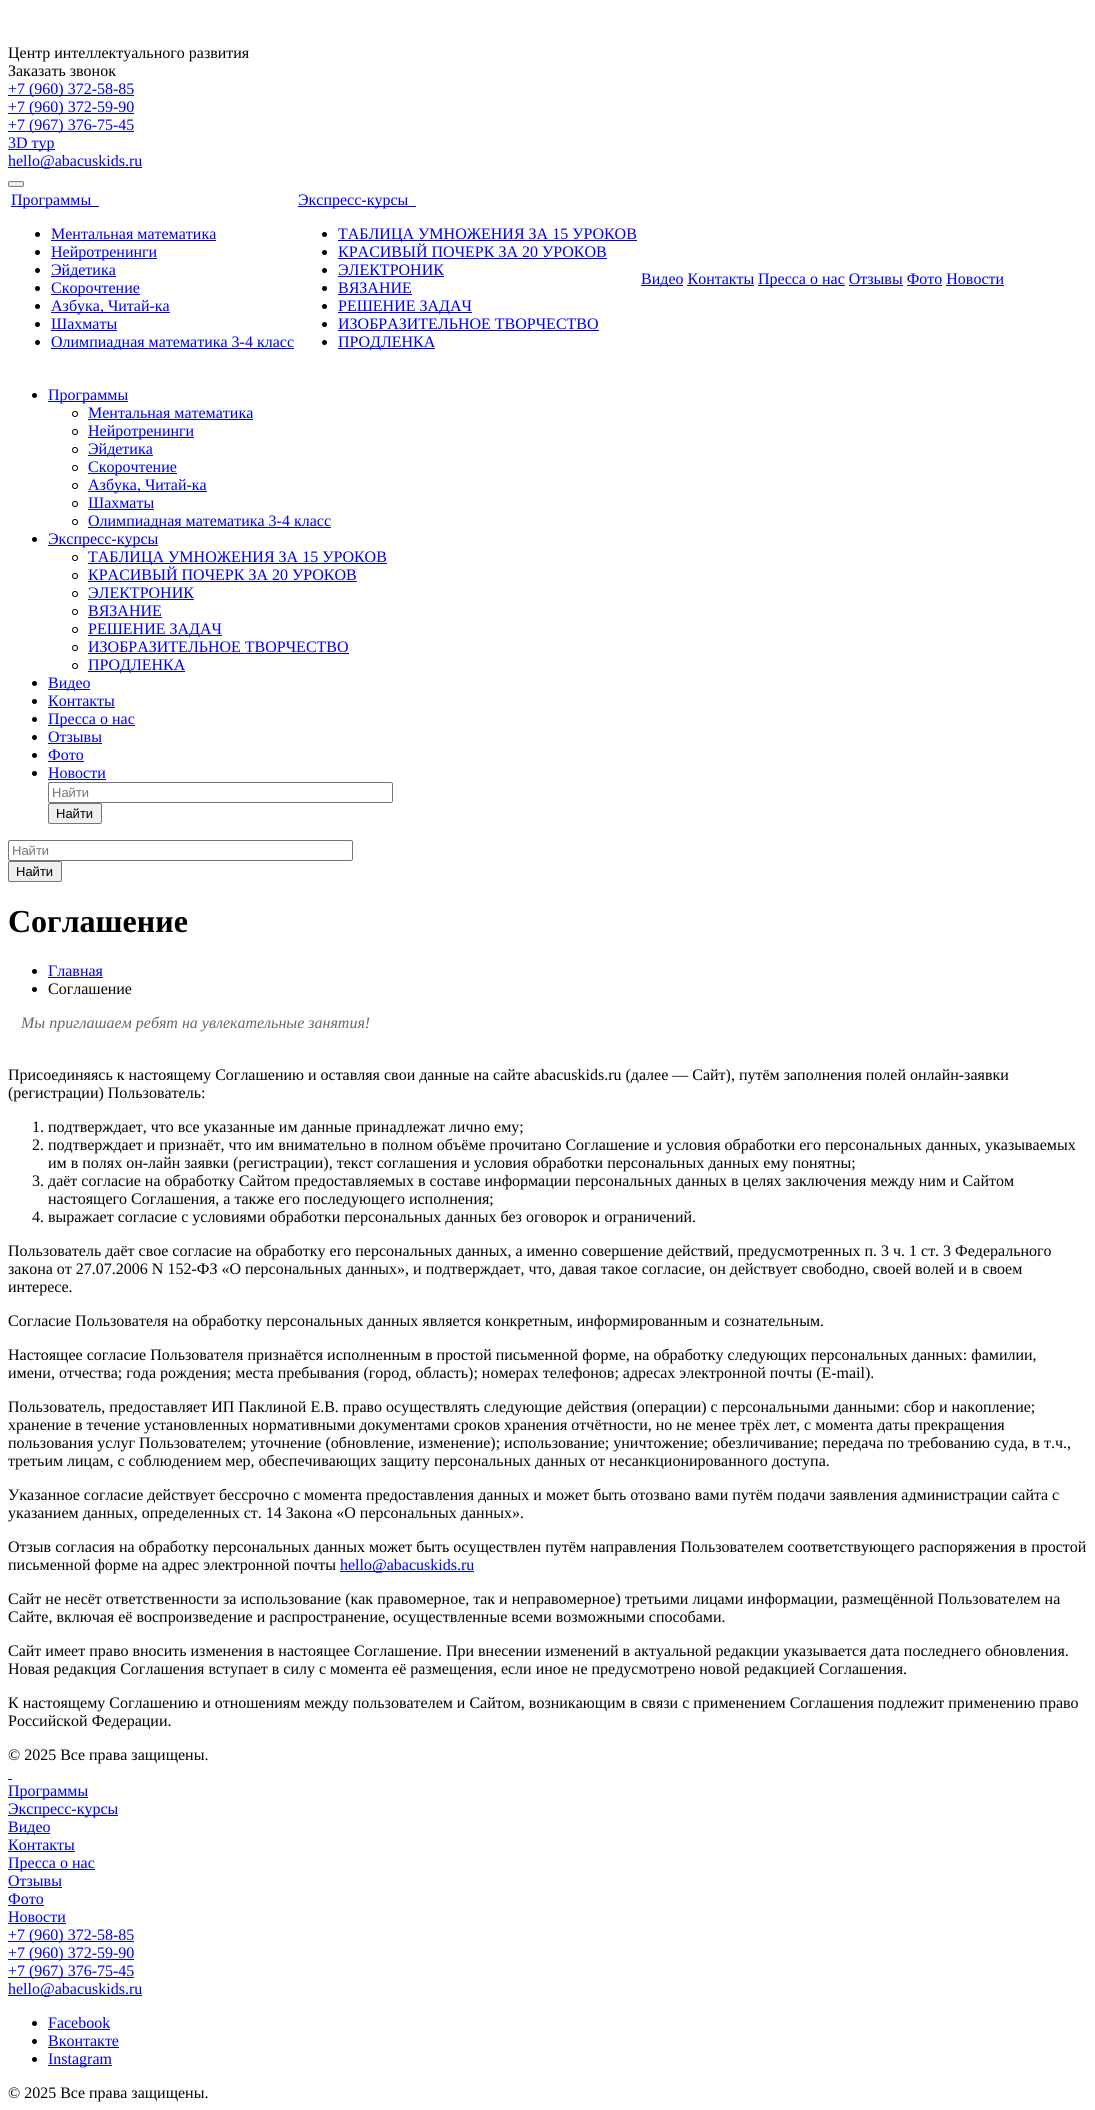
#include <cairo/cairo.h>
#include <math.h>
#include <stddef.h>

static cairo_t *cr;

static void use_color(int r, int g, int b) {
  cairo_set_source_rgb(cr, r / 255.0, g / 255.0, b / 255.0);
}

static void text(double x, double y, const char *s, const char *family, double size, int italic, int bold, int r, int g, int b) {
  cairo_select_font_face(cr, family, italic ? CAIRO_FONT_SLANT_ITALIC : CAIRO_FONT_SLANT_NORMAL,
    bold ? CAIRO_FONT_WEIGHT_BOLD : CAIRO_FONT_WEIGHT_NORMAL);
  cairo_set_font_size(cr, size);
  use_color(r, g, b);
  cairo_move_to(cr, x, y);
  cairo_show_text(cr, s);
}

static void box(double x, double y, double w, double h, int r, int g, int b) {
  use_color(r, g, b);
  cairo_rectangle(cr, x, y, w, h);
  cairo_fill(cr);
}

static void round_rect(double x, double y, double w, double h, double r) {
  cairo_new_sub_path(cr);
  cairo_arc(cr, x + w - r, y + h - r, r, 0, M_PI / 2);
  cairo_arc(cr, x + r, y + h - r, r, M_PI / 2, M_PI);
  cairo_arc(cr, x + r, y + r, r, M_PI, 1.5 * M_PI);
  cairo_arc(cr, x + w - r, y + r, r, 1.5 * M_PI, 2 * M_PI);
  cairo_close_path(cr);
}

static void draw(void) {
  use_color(255, 255, 255);
  cairo_paint(cr);
  box(8, 95, 126, 1, 0, 0, 238);
  box(8, 113, 126, 1, 0, 0, 238);
  box(8, 131, 126, 1, 0, 0, 238);
  box(8, 149, 47, 1, 0, 0, 238);
  box(8, 167, 134, 1, 0, 0, 238);
  use_color(239, 239, 239);
  round_rect(8.5, 181.5, 15, 5, 1.5);
  cairo_fill_preserve(cr);
  use_color(118, 118, 118);
  cairo_set_line_width(cr, 1);
  cairo_stroke(cr);
  box(11, 206, 88, 1, 0, 0, 238);
  use_color(0, 0, 0);
  cairo_arc(cr, 37.5, 234.5, 2.5, 0, 2 * M_PI);
  cairo_fill(cr);
  box(51, 240, 165, 1, 0, 0, 238);
  use_color(0, 0, 0);
  cairo_arc(cr, 37.5, 252.5, 2.5, 0, 2 * M_PI);
  cairo_fill(cr);
  box(51, 258, 106, 1, 0, 0, 238);
  use_color(0, 0, 0);
  cairo_arc(cr, 37.5, 270.5, 2.5, 0, 2 * M_PI);
  cairo_fill(cr);
  box(51, 276, 65, 1, 0, 0, 238);
  use_color(0, 0, 0);
  cairo_arc(cr, 37.5, 288.5, 2.5, 0, 2 * M_PI);
  cairo_fill(cr);
  box(51, 294, 89, 1, 0, 0, 238);
  use_color(0, 0, 0);
  cairo_arc(cr, 37.5, 306.5, 2.5, 0, 2 * M_PI);
  cairo_fill(cr);
  box(51, 312, 119, 1, 0, 0, 238);
  use_color(0, 0, 0);
  cairo_arc(cr, 37.5, 324.5, 2.5, 0, 2 * M_PI);
  cairo_fill(cr);
  box(51, 330, 66, 1, 0, 0, 238);
  use_color(0, 0, 0);
  cairo_arc(cr, 37.5, 342.5, 2.5, 0, 2 * M_PI);
  cairo_fill(cr);
  box(51, 348, 243, 1, 0, 0, 238);
  box(298, 206, 118, 1, 0, 0, 238);
  use_color(0, 0, 0);
  cairo_arc(cr, 324.5, 234.5, 2.5, 0, 2 * M_PI);
  cairo_fill(cr);
  box(338, 240, 299, 1, 0, 0, 238);
  use_color(0, 0, 0);
  cairo_arc(cr, 324.5, 252.5, 2.5, 0, 2 * M_PI);
  cairo_fill(cr);
  box(338, 258, 269, 1, 0, 0, 238);
  use_color(0, 0, 0);
  cairo_arc(cr, 324.5, 270.5, 2.5, 0, 2 * M_PI);
  cairo_fill(cr);
  box(338, 276, 106, 1, 0, 0, 238);
  use_color(0, 0, 0);
  cairo_arc(cr, 324.5, 288.5, 2.5, 0, 2 * M_PI);
  cairo_fill(cr);
  box(338, 294, 74, 1, 0, 0, 238);
  use_color(0, 0, 0);
  cairo_arc(cr, 324.5, 306.5, 2.5, 0, 2 * M_PI);
  cairo_fill(cr);
  box(338, 312, 134, 1, 0, 0, 238);
  use_color(0, 0, 0);
  cairo_arc(cr, 324.5, 324.5, 2.5, 0, 2 * M_PI);
  cairo_fill(cr);
  box(338, 330, 261, 1, 0, 0, 238);
  use_color(0, 0, 0);
  cairo_arc(cr, 324.5, 342.5, 2.5, 0, 2 * M_PI);
  cairo_fill(cr);
  box(338, 348, 97, 1, 0, 0, 238);
  box(641, 285, 42, 1, 0, 0, 238);
  box(758, 285, 87, 1, 0, 0, 238);
  box(687, 285, 67, 1, 0, 0, 238);
  box(849, 285, 54, 1, 0, 0, 238);
  box(907, 285, 35, 1, 0, 0, 238);
  box(946, 285, 58, 1, 0, 0, 238);
  use_color(0, 0, 0);
  cairo_arc(cr, 34.5, 395.5, 2.5, 0, 2 * M_PI);
  cairo_fill(cr);
  box(48, 401, 80, 1, 0, 0, 238);
  cairo_arc(cr, 75, 414, 2.5, 0, 2 * M_PI);
  use_color(0, 0, 0);
  cairo_stroke(cr);
  box(88, 419, 165, 1, 0, 0, 238);
  cairo_arc(cr, 75, 432, 2.5, 0, 2 * M_PI);
  use_color(0, 0, 0);
  cairo_stroke(cr);
  box(88, 437, 106, 1, 0, 0, 238);
  cairo_arc(cr, 75, 450, 2.5, 0, 2 * M_PI);
  use_color(0, 0, 0);
  cairo_stroke(cr);
  box(88, 455, 65, 1, 0, 0, 238);
  cairo_arc(cr, 75, 468, 2.5, 0, 2 * M_PI);
  use_color(0, 0, 0);
  cairo_stroke(cr);
  box(88, 473, 89, 1, 0, 0, 238);
  cairo_arc(cr, 75, 486, 2.5, 0, 2 * M_PI);
  use_color(0, 0, 0);
  cairo_stroke(cr);
  box(88, 491, 119, 1, 0, 0, 238);
  cairo_arc(cr, 75, 504, 2.5, 0, 2 * M_PI);
  use_color(0, 0, 0);
  cairo_stroke(cr);
  box(88, 509, 66, 1, 0, 0, 238);
  cairo_arc(cr, 75, 522, 2.5, 0, 2 * M_PI);
  use_color(0, 0, 0);
  cairo_stroke(cr);
  box(88, 527, 243, 1, 0, 0, 238);
  use_color(0, 0, 0);
  cairo_arc(cr, 34.5, 539.5, 2.5, 0, 2 * M_PI);
  cairo_fill(cr);
  box(48, 545, 110, 1, 0, 0, 238);
  cairo_arc(cr, 75, 558, 2.5, 0, 2 * M_PI);
  use_color(0, 0, 0);
  cairo_stroke(cr);
  box(88, 563, 299, 1, 0, 0, 238);
  cairo_arc(cr, 75, 576, 2.5, 0, 2 * M_PI);
  use_color(0, 0, 0);
  cairo_stroke(cr);
  box(88, 581, 269, 1, 0, 0, 238);
  cairo_arc(cr, 75, 594, 2.5, 0, 2 * M_PI);
  use_color(0, 0, 0);
  cairo_stroke(cr);
  box(88, 599, 106, 1, 0, 0, 238);
  cairo_arc(cr, 75, 612, 2.5, 0, 2 * M_PI);
  use_color(0, 0, 0);
  cairo_stroke(cr);
  box(88, 617, 74, 1, 0, 0, 238);
  cairo_arc(cr, 75, 630, 2.5, 0, 2 * M_PI);
  use_color(0, 0, 0);
  cairo_stroke(cr);
  box(88, 635, 134, 1, 0, 0, 238);
  cairo_arc(cr, 75, 648, 2.5, 0, 2 * M_PI);
  use_color(0, 0, 0);
  cairo_stroke(cr);
  box(88, 653, 261, 1, 0, 0, 238);
  cairo_arc(cr, 75, 666, 2.5, 0, 2 * M_PI);
  use_color(0, 0, 0);
  cairo_stroke(cr);
  box(88, 671, 97, 1, 0, 0, 238);
  use_color(0, 0, 0);
  cairo_arc(cr, 34.5, 683.5, 2.5, 0, 2 * M_PI);
  cairo_fill(cr);
  box(48, 689, 42, 1, 0, 0, 238);
  use_color(0, 0, 0);
  cairo_arc(cr, 34.5, 701.5, 2.5, 0, 2 * M_PI);
  cairo_fill(cr);
  box(48, 707, 67, 1, 0, 0, 238);
  use_color(0, 0, 0);
  cairo_arc(cr, 34.5, 719.5, 2.5, 0, 2 * M_PI);
  cairo_fill(cr);
  box(48, 725, 87, 1, 0, 0, 238);
  use_color(0, 0, 0);
  cairo_arc(cr, 34.5, 737.5, 2.5, 0, 2 * M_PI);
  cairo_fill(cr);
  box(48, 743, 54, 1, 0, 0, 238);
  use_color(0, 0, 0);
  cairo_arc(cr, 34.5, 755.5, 2.5, 0, 2 * M_PI);
  cairo_fill(cr);
  box(48, 761, 36, 1, 0, 0, 238);
  use_color(0, 0, 0);
  cairo_arc(cr, 34.5, 773.5, 2.5, 0, 2 * M_PI);
  cairo_fill(cr);
  box(48, 779, 58, 1, 0, 0, 238);
  round_rect(48.5, 782.5, 344, 20, 1.5);
  use_color(118, 118, 118);
  cairo_stroke(cr);
  use_color(239, 239, 239);
  round_rect(48.5, 803.5, 53, 20, 1.5);
  cairo_fill_preserve(cr);
  use_color(118, 118, 118);
  cairo_stroke(cr);
  round_rect(8.5, 840.5, 344, 20, 1.5);
  cairo_stroke(cr);
  use_color(239, 239, 239);
  round_rect(8.5, 861.5, 53, 20, 1.5);
  cairo_fill_preserve(cr);
  use_color(118, 118, 118);
  cairo_stroke(cr);
  use_color(0, 0, 0);
  cairo_arc(cr, 34.5, 971.5, 2.5, 0, 2 * M_PI);
  cairo_fill(cr);
  box(48, 977, 55, 1, 0, 0, 238);
  use_color(0, 0, 0);
  cairo_arc(cr, 34.5, 989.5, 2.5, 0, 2 * M_PI);
  cairo_fill(cr);
  box(340, 1571, 134, 1, 0, 0, 238);
  box(8, 1779, 4, 1, 0, 0, 238);
  box(8, 1797, 80, 1, 0, 0, 238);
  box(8, 1815, 110, 1, 0, 0, 238);
  box(8, 1833, 42, 1, 0, 0, 238);
  box(8, 1851, 67, 1, 0, 0, 238);
  box(8, 1869, 87, 1, 0, 0, 238);
  box(8, 1887, 54, 1, 0, 0, 238);
  box(8, 1905, 36, 1, 0, 0, 238);
  box(8, 1923, 58, 1, 0, 0, 238);
  box(8, 1941, 126, 1, 0, 0, 238);
  box(8, 1959, 126, 1, 0, 0, 238);
  box(8, 1977, 126, 1, 0, 0, 238);
  box(8, 1995, 134, 1, 0, 0, 238);
  use_color(0, 0, 0);
  cairo_arc(cr, 34.5, 2023.5, 2.5, 0, 2 * M_PI);
  cairo_fill(cr);
  box(48, 2029, 62, 1, 0, 0, 238);
  use_color(0, 0, 0);
  cairo_arc(cr, 34.5, 2041.5, 2.5, 0, 2 * M_PI);
  cairo_fill(cr);
  box(48, 2047, 71, 1, 0, 0, 238);
  use_color(0, 0, 0);
  cairo_arc(cr, 34.5, 2059.5, 2.5, 0, 2 * M_PI);
  cairo_fill(cr);
  box(48, 2065, 64, 1, 0, 0, 238);
  text(8, 58, "Центр интеллектуального развития", "Liberation Serif", 16, 0, 0, 0, 0, 0);
  text(8, 76, "Заказать звонок", "Liberation Serif", 16, 0, 0, 0, 0, 0);
  text(8, 94, "+7 (960) 372-58-85", "Liberation Serif", 16, 0, 0, 0, 0, 238);
  text(8, 112, "+7 (960) 372-59-90", "Liberation Serif", 16, 0, 0, 0, 0, 238);
  text(8, 130, "+7 (967) 376-75-45", "Liberation Serif", 16, 0, 0, 0, 0, 238);
  text(8, 148, "3D тур", "Liberation Serif", 16, 0, 0, 0, 0, 238);
  text(8, 166, "hello@abacuskids.ru", "Liberation Serif", 16, 0, 0, 0, 0, 238);
  text(11, 205, "Программы", "Liberation Serif", 16, 0, 0, 0, 0, 238);
  text(51, 239, "Ментальная математика", "Liberation Serif", 16, 0, 0, 0, 0, 238);
  text(51, 257, "Нейротренинги", "Liberation Serif", 16, 0, 0, 0, 0, 238);
  text(51, 275, "Эйдетика", "Liberation Serif", 16, 0, 0, 0, 0, 238);
  text(51, 293, "Скорочтение", "Liberation Serif", 16, 0, 0, 0, 0, 238);
  text(51, 311, "Азбука, Читай-ка", "Liberation Serif", 16, 0, 0, 0, 0, 238);
  text(51, 329, "Шахматы", "Liberation Serif", 16, 0, 0, 0, 0, 238);
  text(51, 347, "Олимпиадная математика 3-4 класс", "Liberation Serif", 16, 0, 0, 0, 0, 238);
  text(298, 205, "Экспресс-курсы", "Liberation Serif", 16, 0, 0, 0, 0, 238);
  text(338, 239, "ТАБЛИЦА УМНОЖЕНИЯ ЗА 15 УРОКОВ", "Liberation Serif", 16, 0, 0, 0, 0, 238);
  text(338, 257, "КРАСИВЫЙ ПОЧЕРК ЗА 20 УРОКОВ", "Liberation Serif", 16, 0, 0, 0, 0, 238);
  text(338, 275, "ЭЛЕКТРОНИК", "Liberation Serif", 16, 0, 0, 0, 0, 238);
  text(338, 293, "ВЯЗАНИЕ", "Liberation Serif", 16, 0, 0, 0, 0, 238);
  text(338, 311, "РЕШЕНИЕ ЗАДАЧ", "Liberation Serif", 16, 0, 0, 0, 0, 238);
  text(338, 329, "ИЗОБРАЗИТЕЛЬНОЕ ТВОРЧЕСТВО", "Liberation Serif", 16, 0, 0, 0, 0, 238);
  text(338, 347, "ПРОДЛЕНКА", "Liberation Serif", 16, 0, 0, 0, 0, 238);
  text(641, 284, "Видео Контакты", "Liberation Serif", 16, 0, 0, 0, 0, 238);
  text(758, 284, "Пресса о нас Отзывы Фото Новости", "Liberation Serif", 16, 0, 0, 0, 0, 238);
  text(48, 400, "Программы", "Liberation Serif", 16, 0, 0, 0, 0, 238);
  text(88, 418, "Ментальная математика", "Liberation Serif", 16, 0, 0, 0, 0, 238);
  text(88, 436, "Нейротренинги", "Liberation Serif", 16, 0, 0, 0, 0, 238);
  text(88, 454, "Эйдетика", "Liberation Serif", 16, 0, 0, 0, 0, 238);
  text(88, 472, "Скорочтение", "Liberation Serif", 16, 0, 0, 0, 0, 238);
  text(88, 490, "Азбука, Читай-ка", "Liberation Serif", 16, 0, 0, 0, 0, 238);
  text(88, 508, "Шахматы", "Liberation Serif", 16, 0, 0, 0, 0, 238);
  text(88, 526, "Олимпиадная математика 3-4 класс", "Liberation Serif", 16, 0, 0, 0, 0, 238);
  text(48, 544, "Экспресс-курсы", "Liberation Serif", 16, 0, 0, 0, 0, 238);
  text(88, 562, "ТАБЛИЦА УМНОЖЕНИЯ ЗА 15 УРОКОВ", "Liberation Serif", 16, 0, 0, 0, 0, 238);
  text(88, 580, "КРАСИВЫЙ ПОЧЕРК ЗА 20 УРОКОВ", "Liberation Serif", 16, 0, 0, 0, 0, 238);
  text(88, 598, "ЭЛЕКТРОНИК", "Liberation Serif", 16, 0, 0, 0, 0, 238);
  text(88, 616, "ВЯЗАНИЕ", "Liberation Serif", 16, 0, 0, 0, 0, 238);
  text(88, 634, "РЕШЕНИЕ ЗАДАЧ", "Liberation Serif", 16, 0, 0, 0, 0, 238);
  text(88, 652, "ИЗОБРАЗИТЕЛЬНОЕ ТВОРЧЕСТВО", "Liberation Serif", 16, 0, 0, 0, 0, 238);
  text(88, 670, "ПРОДЛЕНКА", "Liberation Serif", 16, 0, 0, 0, 0, 238);
  text(48, 688, "Видео", "Liberation Serif", 16, 0, 0, 0, 0, 238);
  text(48, 706, "Контакты", "Liberation Serif", 16, 0, 0, 0, 0, 238);
  text(48, 724, "Пресса о нас", "Liberation Serif", 16, 0, 0, 0, 0, 238);
  text(48, 742, "Отзывы", "Liberation Serif", 16, 0, 0, 0, 0, 238);
  text(48, 760, "Фото", "Liberation Serif", 16, 0, 0, 0, 0, 238);
  text(48, 778, "Новости", "Liberation Serif", 16, 0, 0, 0, 0, 238);
  text(52, 797, "Найти", "Liberation Sans", 13, 0, 0, 117, 117, 117);
  text(56, 818, "Найти", "Liberation Sans", 13, 0, 0, 0, 0, 0);
  text(12, 855, "Найти", "Liberation Sans", 13, 0, 0, 117, 117, 117);
  text(16, 876, "Найти", "Liberation Sans", 13, 0, 0, 0, 0, 0);
  text(8, 932, "Соглашение", "Liberation Serif", 32, 0, 1, 0, 0, 0);
  text(48, 976, "Главная", "Liberation Serif", 16, 0, 0, 0, 0, 238);
  text(48, 994, "Соглашение", "Liberation Serif", 16, 0, 0, 0, 0, 0);
  text(21, 1028, "Мы приглашаем ребят на увлекательные занятия!", "Liberation Serif", 16, 1, 0, 102, 102, 102);
  text(8, 1080, "Присоединяясь к настоящему Соглашению и оставляя свои данные на сайте abacuskids.ru (далее — Сайт), путём заполнения полей онлайн-заявки", "Liberation Serif", 16, 0, 0, 0, 0, 0);
  text(8, 1098, "(регистрации) Пользователь:", "Liberation Serif", 16, 0, 0, 0, 0, 0);
  text(32, 1132, "1. подтверждает, что все указанные им данные принадлежат лично ему;", "Liberation Serif", 16, 0, 0, 0, 0, 0);
  text(32, 1150, "2. подтверждает и признаёт, что им внимательно в полном объёме прочитано Соглашение и условия обработки его персональных данных, указываемых", "Liberation Serif", 16, 0, 0, 0, 0, 0);
  text(48, 1168, "им в полях он-лайн заявки (регистрации), текст соглашения и условия обработки персональных данных ему понятны;", "Liberation Serif", 16, 0, 0, 0, 0, 0);
  text(32, 1186, "3. даёт согласие на обработку Сайтом предоставляемых в составе информации персональных данных в целях заключения между ним и Сайтом", "Liberation Serif", 16, 0, 0, 0, 0, 0);
  text(48, 1204, "настоящего Соглашения, а также его последующего исполнения;", "Liberation Serif", 16, 0, 0, 0, 0, 0);
  text(32, 1222, "4. выражает согласие с условиями обработки персональных данных без оговорок и ограничений.", "Liberation Serif", 16, 0, 0, 0, 0, 0);
  text(8, 1256, "Пользователь даёт свое согласие на обработку его персональных данных, а именно совершение действий, предусмотренных п. 3 ч. 1 ст. 3 Федерального", "Liberation Serif", 16, 0, 0, 0, 0, 0);
  text(8, 1274, "закона от 27.07.2006 N 152-ФЗ «О персональных данных», и подтверждает, что, давая такое согласие, он действует свободно, своей волей и в своем", "Liberation Serif", 16, 0, 0, 0, 0, 0);
  text(8, 1292, "интересе.", "Liberation Serif", 16, 0, 0, 0, 0, 0);
  text(8, 1326, "Согласие Пользователя на обработку персональных данных является конкретным, информированным и сознательным.", "Liberation Serif", 16, 0, 0, 0, 0, 0);
  text(8, 1360, "Настоящее согласие Пользователя признаётся исполненным в простой письменной форме, на обработку следующих персональных данных: фамилии,", "Liberation Serif", 16, 0, 0, 0, 0, 0);
  text(8, 1378, "имени, отчества; года рождения; места пребывания (город, область); номерах телефонов; адресах электронной почты (E-mail).", "Liberation Serif", 16, 0, 0, 0, 0, 0);
  text(8, 1412, "Пользователь, предоставляет ИП Паклиной Е.В. право осуществлять следующие действия (операции) с персональными данными: сбор и накопление;", "Liberation Serif", 16, 0, 0, 0, 0, 0);
  text(8, 1430, "хранение в течение установленных нормативными документами сроков хранения отчётности, но не менее трёх лет, с момента даты прекращения", "Liberation Serif", 16, 0, 0, 0, 0, 0);
  text(8, 1448, "пользования услуг Пользователем; уточнение (обновление, изменение); использование; уничтожение; обезличивание; передача по требованию суда, в т.ч.,", "Liberation Serif", 16, 0, 0, 0, 0, 0);
  text(8, 1466, "третьим лицам, с соблюдением мер, обеспечивающих защиту персональных данных от несанкционированного доступа.", "Liberation Serif", 16, 0, 0, 0, 0, 0);
  text(8, 1500, "Указанное согласие действует бессрочно с момента предоставления данных и может быть отозвано вами путём подачи заявления администрации сайта с", "Liberation Serif", 16, 0, 0, 0, 0, 0);
  text(8, 1518, "указанием данных, определенных ст. 14 Закона «О персональных данных».", "Liberation Serif", 16, 0, 0, 0, 0, 0);
  text(8, 1552, "Отзыв согласия на обработку персональных данных может быть осуществлен путём направления Пользователем соответствующего распоряжения в простой", "Liberation Serif", 16, 0, 0, 0, 0, 0);
  text(8, 1570, "письменной форме на адрес электронной почты", "Liberation Serif", 16, 0, 0, 0, 0, 0);
  text(340, 1570, "hello@abacuskids.ru", "Liberation Serif", 16, 0, 0, 0, 0, 238);
  text(8, 1604, "Сайт не несёт ответственности за использование (как правомерное, так и неправомерное) третьими лицами информации, размещённой Пользователем на", "Liberation Serif", 16, 0, 0, 0, 0, 0);
  text(8, 1622, "Сайте, включая её воспроизведение и распространение, осуществленные всеми возможными способами.", "Liberation Serif", 16, 0, 0, 0, 0, 0);
  text(8, 1656, "Сайт имеет право вносить изменения в настоящее Соглашение. При внесении изменений в актуальной редакции указывается дата последнего обновления.", "Liberation Serif", 16, 0, 0, 0, 0, 0);
  text(8, 1674, "Новая редакция Соглашения вступает в силу с момента её размещения, если иное не предусмотрено новой редакцией Соглашения.", "Liberation Serif", 16, 0, 0, 0, 0, 0);
  text(8, 1708, "К настоящему Соглашению и отношениям между пользователем и Сайтом, возникающим в связи с применением Соглашения подлежит применению право", "Liberation Serif", 16, 0, 0, 0, 0, 0);
  text(8, 1726, "Российской Федерации.", "Liberation Serif", 16, 0, 0, 0, 0, 0);
  text(8, 1760, "© 2025 Все права защищены.", "Liberation Serif", 16, 0, 0, 0, 0, 0);
  text(8, 1796, "Программы", "Liberation Serif", 16, 0, 0, 0, 0, 238);
  text(8, 1814, "Экспресс-курсы", "Liberation Serif", 16, 0, 0, 0, 0, 238);
  text(8, 1832, "Видео", "Liberation Serif", 16, 0, 0, 0, 0, 238);
  text(8, 1850, "Контакты", "Liberation Serif", 16, 0, 0, 0, 0, 238);
  text(8, 1868, "Пресса о нас", "Liberation Serif", 16, 0, 0, 0, 0, 238);
  text(8, 1886, "Отзывы", "Liberation Serif", 16, 0, 0, 0, 0, 238);
  text(8, 1904, "Фото", "Liberation Serif", 16, 0, 0, 0, 0, 238);
  text(8, 1922, "Новости", "Liberation Serif", 16, 0, 0, 0, 0, 238);
  text(8, 1940, "+7 (960) 372-58-85", "Liberation Serif", 16, 0, 0, 0, 0, 238);
  text(8, 1958, "+7 (960) 372-59-90", "Liberation Serif", 16, 0, 0, 0, 0, 238);
  text(8, 1976, "+7 (967) 376-75-45", "Liberation Serif", 16, 0, 0, 0, 0, 238);
  text(8, 1994, "hello@abacuskids.ru", "Liberation Serif", 16, 0, 0, 0, 0, 238);
  text(48, 2028, "Facebook", "Liberation Serif", 16, 0, 0, 0, 0, 238);
  text(48, 2046, "Вконтакте", "Liberation Serif", 16, 0, 0, 0, 0, 238);
  text(48, 2064, "Instagram", "Liberation Serif", 16, 0, 0, 0, 0, 238);
  text(8, 2098, "© 2025 Все права защищены.", "Liberation Serif", 16, 0, 0, 0, 0, 0);
}

int main(void) {
  cairo_surface_t *surface = cairo_image_surface_create(CAIRO_FORMAT_RGB24, 1095, 2110);
  cr = cairo_create(surface);
  cairo_font_options_t *options = cairo_font_options_create();
  cairo_font_options_set_hint_metrics(options, CAIRO_HINT_METRICS_OFF);
  cairo_font_options_set_hint_style(options, CAIRO_HINT_STYLE_NONE);
  cairo_set_font_options(cr, options);
  cairo_set_miter_limit(cr, 4);
  draw();
  cairo_surface_write_to_png(surface, "out.png");
  cairo_font_options_destroy(options);
  cairo_destroy(cr);
  cairo_surface_destroy(surface);
  return 0;
}
